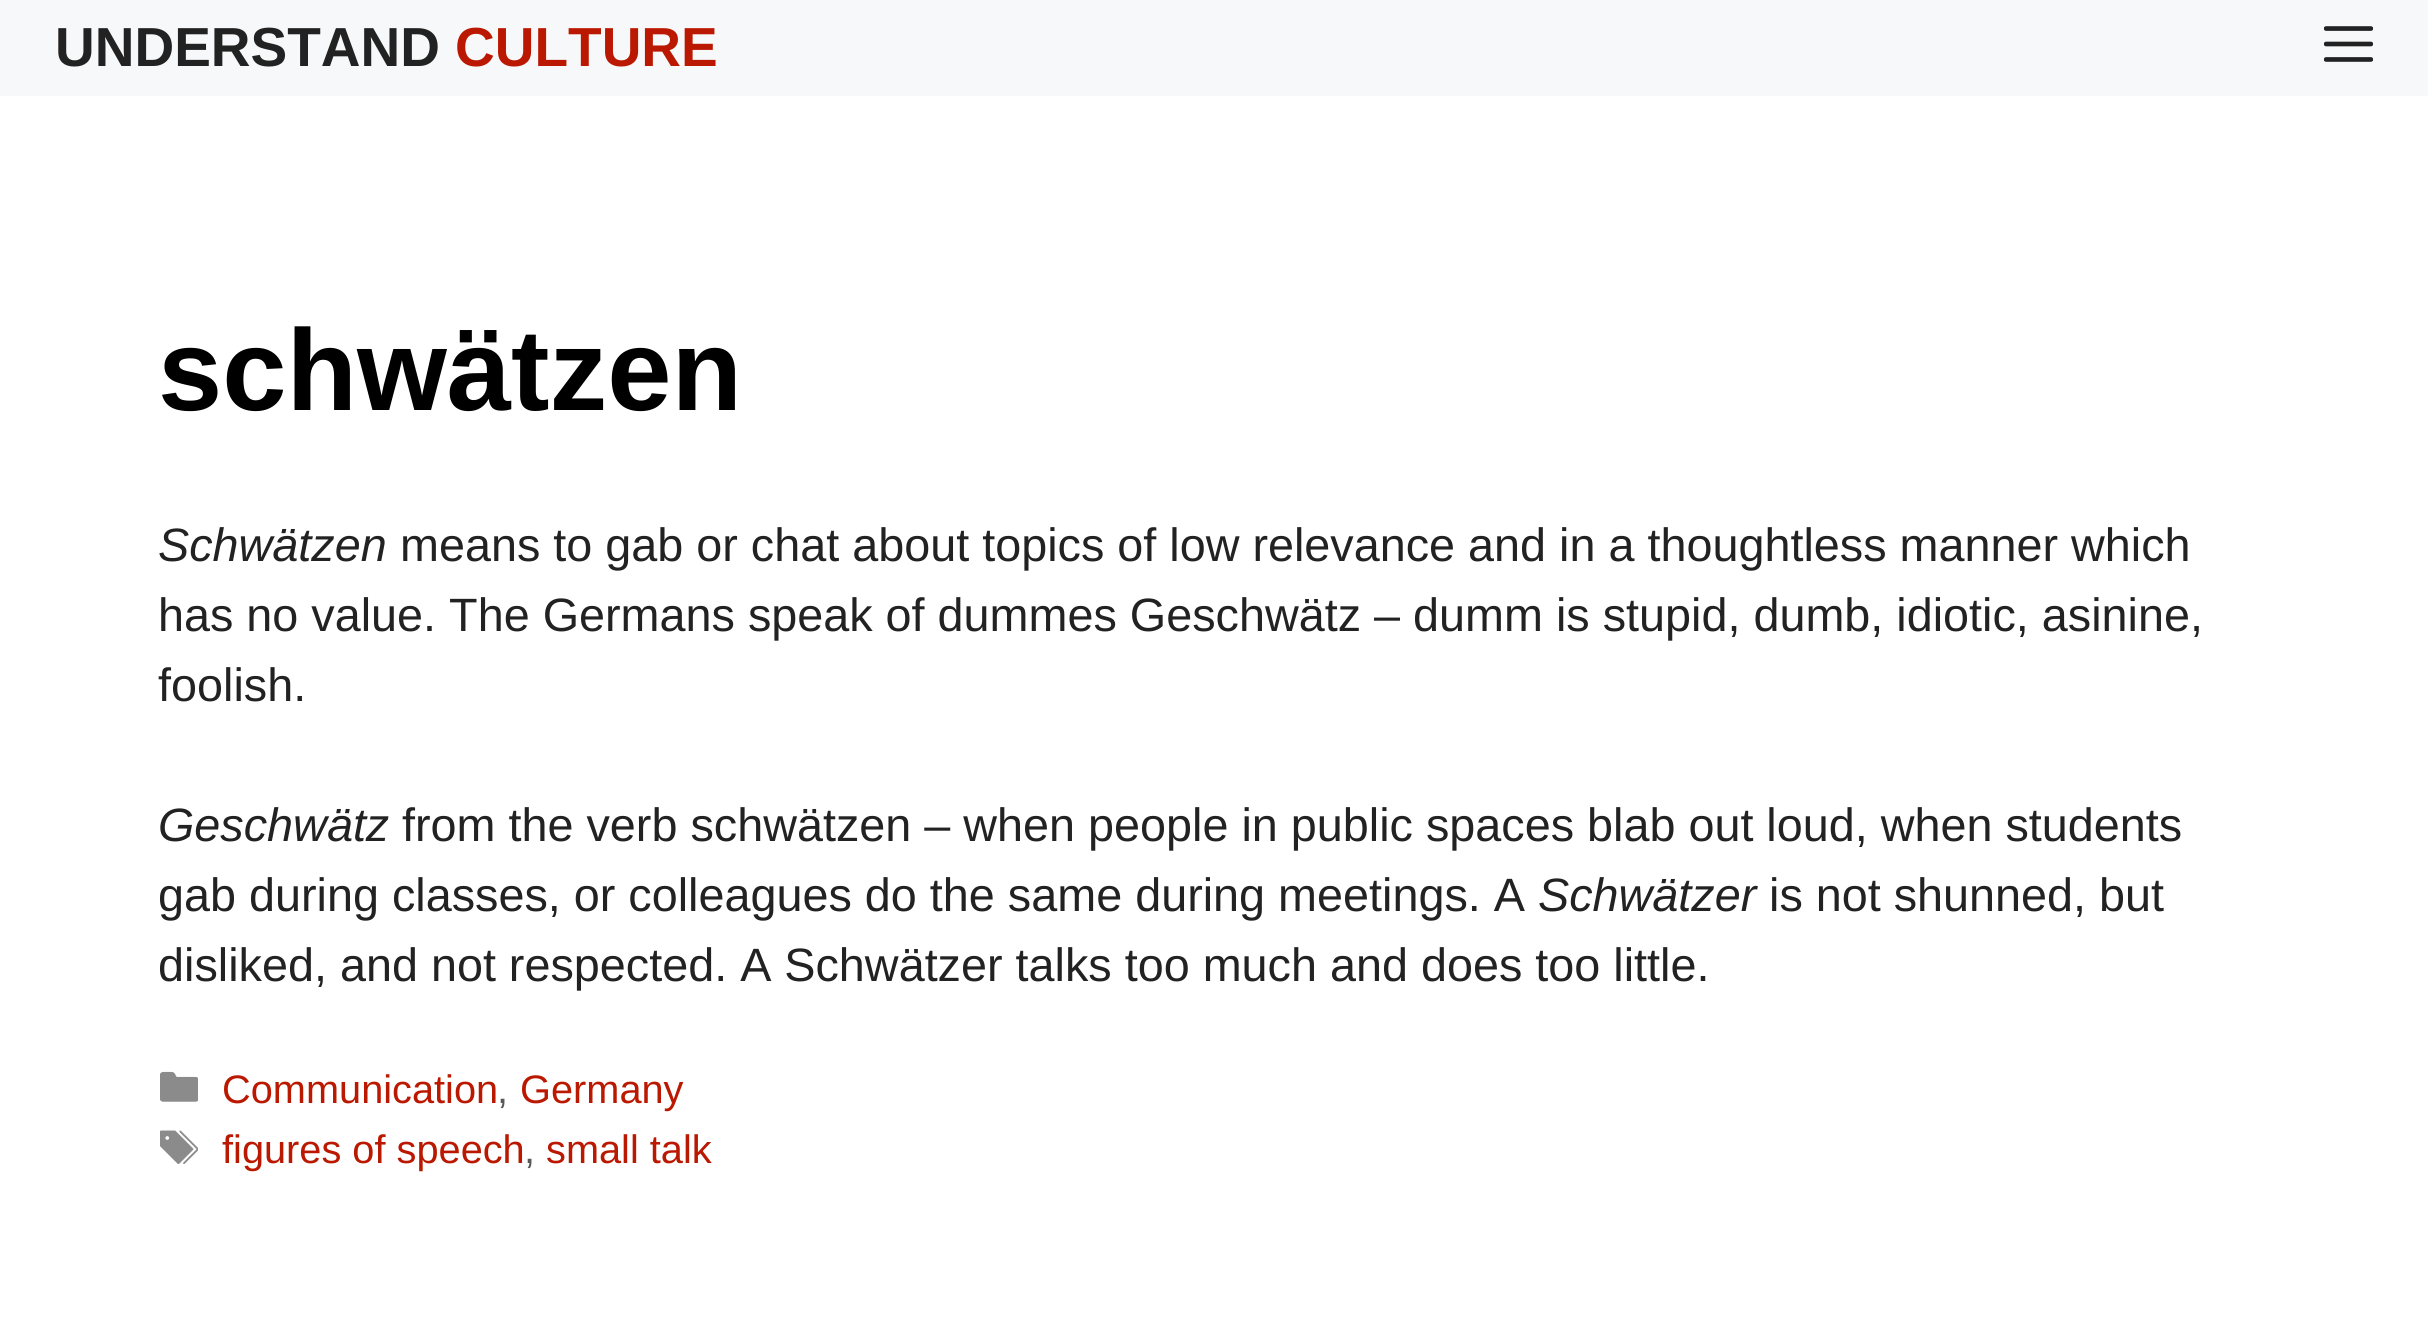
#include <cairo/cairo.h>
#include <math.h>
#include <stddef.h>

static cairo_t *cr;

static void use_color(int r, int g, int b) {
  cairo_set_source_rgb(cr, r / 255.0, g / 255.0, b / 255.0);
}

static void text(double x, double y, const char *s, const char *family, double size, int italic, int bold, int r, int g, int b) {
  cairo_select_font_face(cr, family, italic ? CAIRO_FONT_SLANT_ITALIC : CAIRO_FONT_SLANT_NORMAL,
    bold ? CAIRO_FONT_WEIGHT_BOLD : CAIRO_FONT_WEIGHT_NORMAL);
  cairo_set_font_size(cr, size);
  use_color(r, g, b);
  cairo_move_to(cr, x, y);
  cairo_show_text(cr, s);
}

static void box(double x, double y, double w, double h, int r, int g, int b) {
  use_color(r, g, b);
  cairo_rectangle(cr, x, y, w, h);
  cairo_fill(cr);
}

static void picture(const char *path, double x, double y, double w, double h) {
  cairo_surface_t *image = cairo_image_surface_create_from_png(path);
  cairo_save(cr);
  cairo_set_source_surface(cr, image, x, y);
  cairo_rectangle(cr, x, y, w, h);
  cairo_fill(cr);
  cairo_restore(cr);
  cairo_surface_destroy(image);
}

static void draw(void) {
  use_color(255, 255, 255);
  cairo_paint(cr);
  box(0, 0, 2428, 96, 247, 248, 249);
  picture("img_01.png", 2324, 26, 49, 36);
  picture("img_02.png", 160, 1071, 38, 31);
  picture("img_03.png", 160, 1130, 38, 34);
  text(55, 66, "UNDERSTAND", "Liberation Sans", 55, 0, 1, 34, 34, 34);
  text(455, 66, "CULTURE", "Liberation Sans", 55, 0, 1, 186, 24, 0);
  text(158, 410, "schwätzen", "Liberation Sans", 115.5, 0, 1, 0, 0, 0);
  text(158, 561, "Schwätzen", "Liberation Sans", 46.75, 1, 0, 34, 34, 34);
  text(400, 561, "means to gab or chat about topics of low relevance and in a thoughtless manner which", "Liberation Sans", 46.75, 0, 0, 34, 34, 34);
  text(158, 631, "has no value. The Germans speak of dummes Geschwätz – dumm is stupid, dumb, idiotic, asinine,", "Liberation Sans", 46.75, 0, 0, 34, 34, 34);
  text(158, 701, "foolish.", "Liberation Sans", 46.75, 0, 0, 34, 34, 34);
  text(158, 841, "Geschwätz", "Liberation Sans", 46.75, 1, 0, 34, 34, 34);
  text(402, 841, "from the verb schwätzen – when people in public spaces blab out loud, when students", "Liberation Sans", 46.75, 0, 0, 34, 34, 34);
  text(158, 911, "gab during classes, or colleagues do the same during meetings. A", "Liberation Sans", 46.75, 0, 0, 34, 34, 34);
  text(1538, 911, "Schwätzer", "Liberation Sans", 46.75, 1, 0, 34, 34, 34);
  text(1769, 911, "is not shunned, but", "Liberation Sans", 46.75, 0, 0, 34, 34, 34);
  text(158, 981, "disliked, and not respected. A Schwätzer talks too much and does too little.", "Liberation Sans", 46.75, 0, 0, 34, 34, 34);
  text(222, 1103, "Communication", "Liberation Sans", 39.75, 0, 0, 186, 24, 0);
  text(497, 1103, ",", "Liberation Sans", 39.75, 0, 0, 89, 89, 89);
  text(520, 1103, "Germany", "Liberation Sans", 39.75, 0, 0, 186, 24, 0);
  text(222, 1163, "figures of speech", "Liberation Sans", 39.75, 0, 0, 186, 24, 0);
  text(524, 1163, ",", "Liberation Sans", 39.75, 0, 0, 89, 89, 89);
  text(546, 1163, "small talk", "Liberation Sans", 39.75, 0, 0, 186, 24, 0);
}

int main(void) {
  cairo_surface_t *surface = cairo_image_surface_create(CAIRO_FORMAT_RGB24, 2428, 1330);
  cr = cairo_create(surface);
  cairo_font_options_t *options = cairo_font_options_create();
  cairo_font_options_set_hint_metrics(options, CAIRO_HINT_METRICS_OFF);
  cairo_font_options_set_hint_style(options, CAIRO_HINT_STYLE_NONE);
  cairo_set_font_options(cr, options);
  cairo_set_miter_limit(cr, 4);
  draw();
  cairo_surface_write_to_png(surface, "out.png");
  cairo_font_options_destroy(options);
  cairo_destroy(cr);
  cairo_surface_destroy(surface);
  return 0;
}
